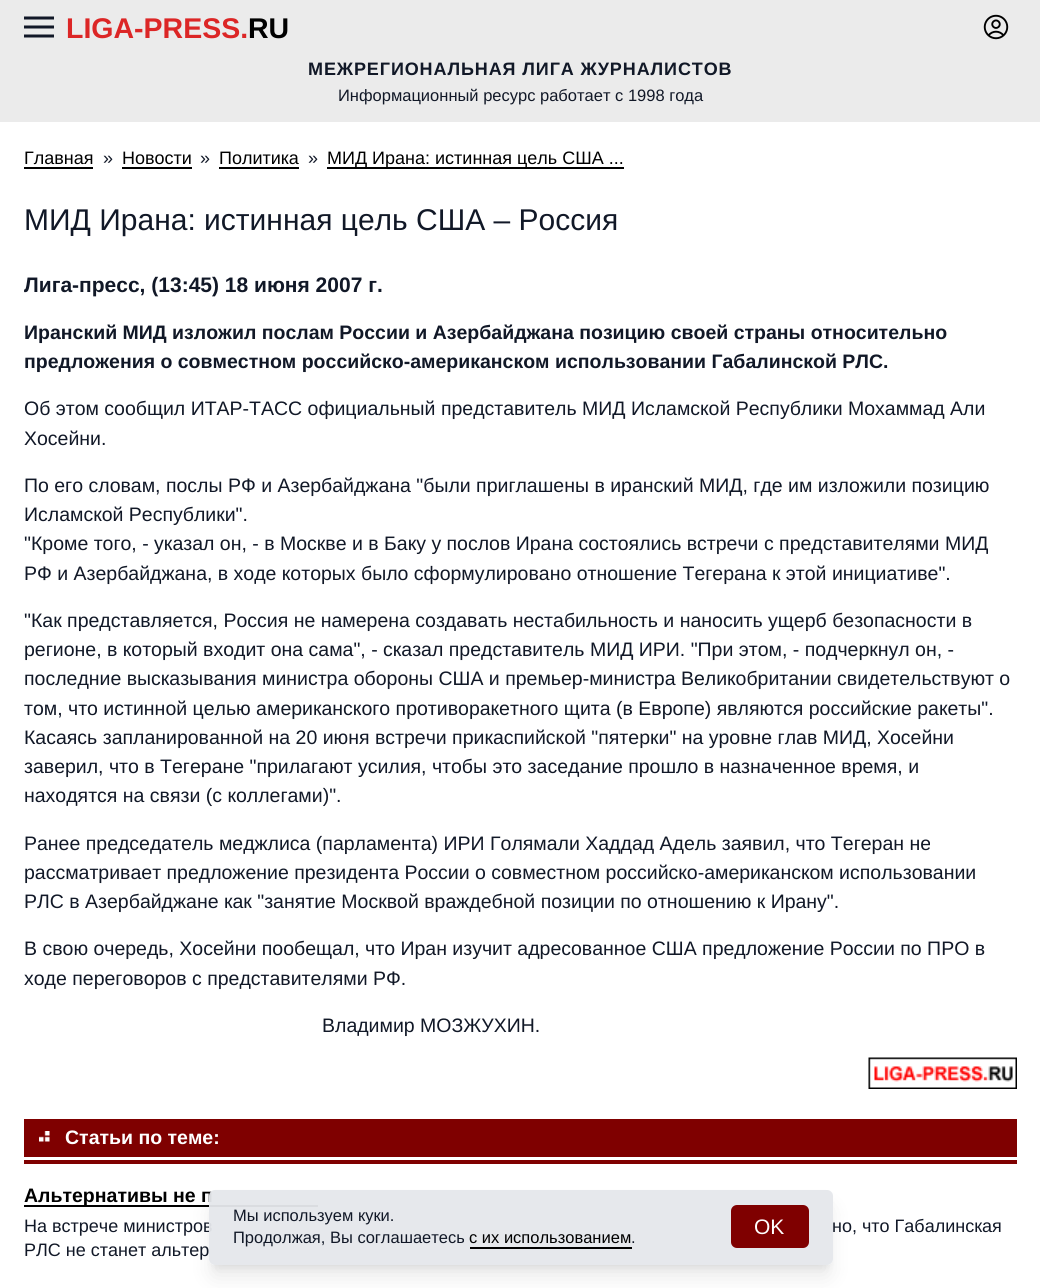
#include <cairo/cairo.h>
#include <math.h>
#include <stddef.h>

static cairo_t *cr;

static void use_color(int r, int g, int b) {
  cairo_set_source_rgb(cr, r / 255.0, g / 255.0, b / 255.0);
}

static void text(double x, double y, const char *s, const char *family, double size, int italic, int bold, int r, int g, int b) {
  cairo_select_font_face(cr, family, italic ? CAIRO_FONT_SLANT_ITALIC : CAIRO_FONT_SLANT_NORMAL,
    bold ? CAIRO_FONT_WEIGHT_BOLD : CAIRO_FONT_WEIGHT_NORMAL);
  cairo_set_font_size(cr, size);
  use_color(r, g, b);
  cairo_move_to(cr, x, y);
  cairo_show_text(cr, s);
}

static void spaced_text(double x, double y, const char *s, double letter, double word) {
  cairo_move_to(cr, x, y);
  while (*s) {
    char ch[5] = {0};
    int n = 0;
    do ch[n++] = *s++; while ((*s & 0xC0) == 0x80);
    cairo_show_text(cr, ch);
    cairo_rel_move_to(cr, letter + word * (*ch == ' '), 0);
  }
}

static void box(double x, double y, double w, double h, int r, int g, int b) {
  use_color(r, g, b);
  cairo_rectangle(cr, x, y, w, h);
  cairo_fill(cr);
}

static void round_rect(double x, double y, double w, double h, double r) {
  cairo_new_sub_path(cr);
  cairo_arc(cr, x + w - r, y + h - r, r, 0, M_PI / 2);
  cairo_arc(cr, x + r, y + h - r, r, M_PI / 2, M_PI);
  cairo_arc(cr, x + r, y + r, r, M_PI, 1.5 * M_PI);
  cairo_arc(cr, x + w - r, y + r, r, 1.5 * M_PI, 2 * M_PI);
  cairo_close_path(cr);
}

static void shadow(double x, double y, double w, double h, double r, double blur, double alpha) {
  cairo_push_group_with_content(cr, CAIRO_CONTENT_ALPHA);
  cairo_set_operator(cr, CAIRO_OPERATOR_SOURCE);
  for (int i = 15; i >= -15 && fmin(w, h) + blur * i / 3 > 0; i -= 2) {
    double e = blur * i / 6;
    cairo_set_source_rgba(cr, 0, 0, 0, alpha * erfc((i - 1) / 8.5) / 2);
    round_rect(x - e, y - e, w + 2 * e, h + 2 * e, fmax(0, fmin(r + e + blur * .6, fmin(w, h) / 2 + e)));
    cairo_fill(cr);
  }
  cairo_pattern_t *soft = cairo_pop_group(cr);
  cairo_mask(cr, soft);
  cairo_pattern_destroy(soft);
}

static void picture(const char *path, double x, double y, double w, double h) {
  cairo_surface_t *image = cairo_image_surface_create_from_png(path);
  cairo_save(cr);
  cairo_set_source_surface(cr, image, x, y);
  cairo_rectangle(cr, x, y, w, h);
  cairo_fill(cr);
  cairo_restore(cr);
  cairo_surface_destroy(image);
}

static void draw(void) {
  use_color(255, 255, 255);
  cairo_paint(cr);
  box(0, 0, 1040, 122, 235, 235, 235);
  picture("img_01.png", 24, 16, 30, 22);
  picture("img_02.png", 983, 14, 26, 26);
  box(24, 167, 69, 2, 0, 0, 0);
  box(122, 167, 70, 2, 0, 0, 0);
  box(219, 167, 80, 2, 0, 0, 0);
  box(327, 167, 297, 2, 0, 0, 0);
  picture("img_03.png", 868, 1057, 149, 32);
  box(24, 1160, 993, 4, 127, 0, 0);
  box(24, 1119, 993, 38, 127, 0, 0);
  picture("img_04.png", 39, 1131, 11, 11);
  box(24, 1205, 294, 2, 0, 0, 0);
  cairo_save(cr);
  cairo_set_fill_rule(cr, CAIRO_FILL_RULE_EVEN_ODD);
  cairo_new_path(cr);
  cairo_move_to(cr, 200, 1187);
  cairo_line_to(cr, 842, 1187);
  cairo_line_to(cr, 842, 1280);
  cairo_line_to(cr, 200, 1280);
  cairo_close_path(cr);
  cairo_move_to(cr, 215, 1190);
  cairo_line_to(cr, 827, 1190);
  cairo_curve_to(cr, 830.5, 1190, 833, 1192.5, 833, 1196);
  cairo_line_to(cr, 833, 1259);
  cairo_curve_to(cr, 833, 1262.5, 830.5, 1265, 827, 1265);
  cairo_line_to(cr, 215, 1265);
  cairo_curve_to(cr, 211.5, 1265, 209, 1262.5, 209, 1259);
  cairo_line_to(cr, 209, 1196);
  cairo_curve_to(cr, 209, 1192.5, 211.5, 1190, 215, 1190);
  cairo_close_path(cr);
  cairo_clip(cr);
  use_color(0, 0, 0);
  shadow(215, 1202, 612, 63, 0, 4.5, 0.1);
  cairo_restore(cr);
  cairo_save(cr);
  cairo_set_fill_rule(cr, CAIRO_FILL_RULE_EVEN_ODD);
  cairo_new_path(cr);
  cairo_move_to(cr, 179, 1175);
  cairo_line_to(cr, 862, 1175);
  cairo_line_to(cr, 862, 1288);
  cairo_line_to(cr, 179, 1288);
  cairo_close_path(cr);
  cairo_move_to(cr, 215, 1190);
  cairo_line_to(cr, 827, 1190);
  cairo_curve_to(cr, 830.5, 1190, 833, 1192.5, 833, 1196);
  cairo_line_to(cr, 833, 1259);
  cairo_curve_to(cr, 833, 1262.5, 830.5, 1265, 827, 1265);
  cairo_line_to(cr, 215, 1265);
  cairo_curve_to(cr, 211.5, 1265, 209, 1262.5, 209, 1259);
  cairo_line_to(cr, 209, 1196);
  cairo_curve_to(cr, 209, 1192.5, 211.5, 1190, 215, 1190);
  cairo_close_path(cr);
  cairo_clip(cr);
  use_color(0, 0, 0);
  shadow(213, 1209, 615, 66, 1.5, 11, 0.1);
  cairo_restore(cr);
  text(66, 38, "LIGA-PRESS.", "Liberation Sans", 28.5, 0, 1, 220, 38, 38);
  text(248, 38, "RU", "Liberation Sans", 28.5, 0, 1, 0, 0, 0);
  cairo_set_font_size(cr, 18);
  use_color(17, 24, 39);
  spaced_text(308, 75, "МЕЖРЕГИОНАЛЬНАЯ ЛИГА ЖУРНАЛИСТОВ", 0.9, 0);
  text(338, 101, "Информационный ресурс работает с 1998 года", "Liberation Sans", 16.5, 0, 0, 17, 24, 39);
  text(24, 164, "Главная", "Liberation Sans", 18, 0, 0, 0, 0, 0);
  text(103, 164, "»", "Liberation Sans", 18, 0, 0, 17, 24, 39);
  text(122, 164, "Новости", "Liberation Sans", 18, 0, 0, 0, 0, 0);
  text(200, 164, "»", "Liberation Sans", 18, 0, 0, 17, 24, 39);
  text(219, 164, "Политика", "Liberation Sans", 18, 0, 0, 0, 0, 0);
  text(308, 164, "»", "Liberation Sans", 18, 0, 0, 17, 24, 39);
  text(327, 164, "МИД Ирана: истинная цель США ...", "Liberation Sans", 18, 0, 0, 0, 0, 0);
  text(24, 230, "МИД Ирана: истинная цель США – Россия", "Liberation Sans", 30, 0, 0, 17, 24, 39);
  text(24, 292, "Лига-пресс, (13:45) 18 июня 2007 г.", "Liberation Sans", 21, 0, 1, 17, 24, 39);
  text(24, 339, "Иранский МИД изложил послам России и Азербайджана позицию своей страны относительно", "Liberation Sans", 19.5, 0, 1, 17, 24, 39);
  text(24, 368, "предложения о совместном российско-американском использовании Габалинской РЛС.", "Liberation Sans", 19.5, 0, 1, 17, 24, 39);
  text(24, 415, "Об этом сообщил ИТАР-ТАСС официальный представитель МИД Исламской Республики Мохаммад Али", "Liberation Sans", 19.5, 0, 0, 17, 24, 39);
  text(24, 445, "Хосейни.", "Liberation Sans", 19.5, 0, 0, 17, 24, 39);
  text(24, 492, "По его словам, послы РФ и Азербайджана \"были приглашены в иранский МИД, где им изложили позицию", "Liberation Sans", 19.5, 0, 0, 17, 24, 39);
  text(24, 521, "Исламской Республики\".", "Liberation Sans", 19.5, 0, 0, 17, 24, 39);
  text(24, 550, "\"Кроме того, - указал он, - в Москве и в Баку у послов Ирана состоялись встречи с представителями МИД", "Liberation Sans", 19.5, 0, 0, 17, 24, 39);
  text(24, 580, "РФ и Азербайджана, в ходе которых было сформулировано отношение Тегерана к этой инициативе\".", "Liberation Sans", 19.5, 0, 0, 17, 24, 39);
  text(24, 627, "\"Как представляется, Россия не намерена создавать нестабильность и наносить ущерб безопасности в", "Liberation Sans", 19.5, 0, 0, 17, 24, 39);
  text(24, 656, "регионе, в который входит она сама\", - сказал представитель МИД ИРИ. \"При этом, - подчеркнул он, -", "Liberation Sans", 19.5, 0, 0, 17, 24, 39);
  text(24, 685, "последние высказывания министра обороны США и премьер-министра Великобритании свидетельствуют о", "Liberation Sans", 19.5, 0, 0, 17, 24, 39);
  text(24, 715, "том, что истинной целью американского противоракетного щита (в Европе) являются российские ракеты\".", "Liberation Sans", 19.5, 0, 0, 17, 24, 39);
  text(24, 744, "Касаясь запланированной на 20 июня встречи прикаспийской \"пятерки\" на уровне глав МИД, Хосейни", "Liberation Sans", 19.5, 0, 0, 17, 24, 39);
  text(24, 773, "заверил, что в Тегеране \"прилагают усилия, чтобы это заседание прошло в назначенное время, и", "Liberation Sans", 19.5, 0, 0, 17, 24, 39);
  text(24, 802, "находятся на связи (с коллегами)\".", "Liberation Sans", 19.5, 0, 0, 17, 24, 39);
  text(24, 850, "Ранее председатель меджлиса (парламента) ИРИ Голямали Хаддад Адель заявил, что Тегеран не", "Liberation Sans", 19.5, 0, 0, 17, 24, 39);
  text(24, 879, "рассматривает предложение президента России о совместном российско-американском использовании", "Liberation Sans", 19.5, 0, 0, 17, 24, 39);
  text(24, 908, "РЛС в Азербайджане как \"занятие Москвой враждебной позиции по отношению к Ирану\".", "Liberation Sans", 19.5, 0, 0, 17, 24, 39);
  text(24, 955, "В свою очередь, Хосейни пообещал, что Иран изучит адресованное США предложение России по ПРО в", "Liberation Sans", 19.5, 0, 0, 17, 24, 39);
  text(24, 985, "ходе переговоров с представителями РФ.", "Liberation Sans", 19.5, 0, 0, 17, 24, 39);
  text(322, 1032, "Владимир МОЗЖУХИН.", "Liberation Sans", 19.5, 0, 0, 17, 24, 39);
  text(65, 1144, "Статьи по теме:", "Liberation Sans", 19.5, 0, 1, 255, 255, 255);
  text(24, 1202, "Альтернативы не п", "Liberation Sans", 19.5, 0, 1, 0, 0, 0);
  text(24, 1232, "На встрече министров", "Liberation Sans", 18, 0, 0, 17, 24, 39);
  text(832, 1232, "но, что Габалинская", "Liberation Sans", 18, 0, 0, 17, 24, 39);
  text(24, 1256, "РЛС не станет альтер", "Liberation Sans", 18, 0, 0, 17, 24, 39);
  cairo_set_source_rgba(cr, 0.898, 0.906, 0.922, 0.95);
  round_rect(209, 1190, 624, 75, 6);
  cairo_fill(cr);
  text(233, 1221, "Мы используем куки.", "Liberation Sans", 16.5, 0, 0, 17, 24, 39);
  text(233, 1243, "Продолжая, Вы соглашаетесь", "Liberation Sans", 16.5, 0, 0, 17, 24, 39);
  text(469, 1243, "с их использованием", "Liberation Sans", 16.5, 0, 0, 0, 0, 0);
  box(470, 1247, 162, 2, 0, 0, 0);
  text(631, 1243, ".", "Liberation Sans", 16.5, 0, 0, 17, 24, 39);
  use_color(127, 0, 0);
  round_rect(731, 1205, 78, 43, 6);
  cairo_fill(cr);
  text(754, 1234, "OK", "Liberation Sans", 21, 0, 0, 255, 255, 255);
}

int main(void) {
  cairo_surface_t *surface = cairo_image_surface_create(CAIRO_FORMAT_RGB24, 1040, 1288);
  cr = cairo_create(surface);
  cairo_font_options_t *options = cairo_font_options_create();
  cairo_font_options_set_hint_metrics(options, CAIRO_HINT_METRICS_OFF);
  cairo_font_options_set_hint_style(options, CAIRO_HINT_STYLE_NONE);
  cairo_set_font_options(cr, options);
  cairo_set_miter_limit(cr, 4);
  draw();
  cairo_surface_write_to_png(surface, "out.png");
  cairo_font_options_destroy(options);
  cairo_destroy(cr);
  cairo_surface_destroy(surface);
  return 0;
}
